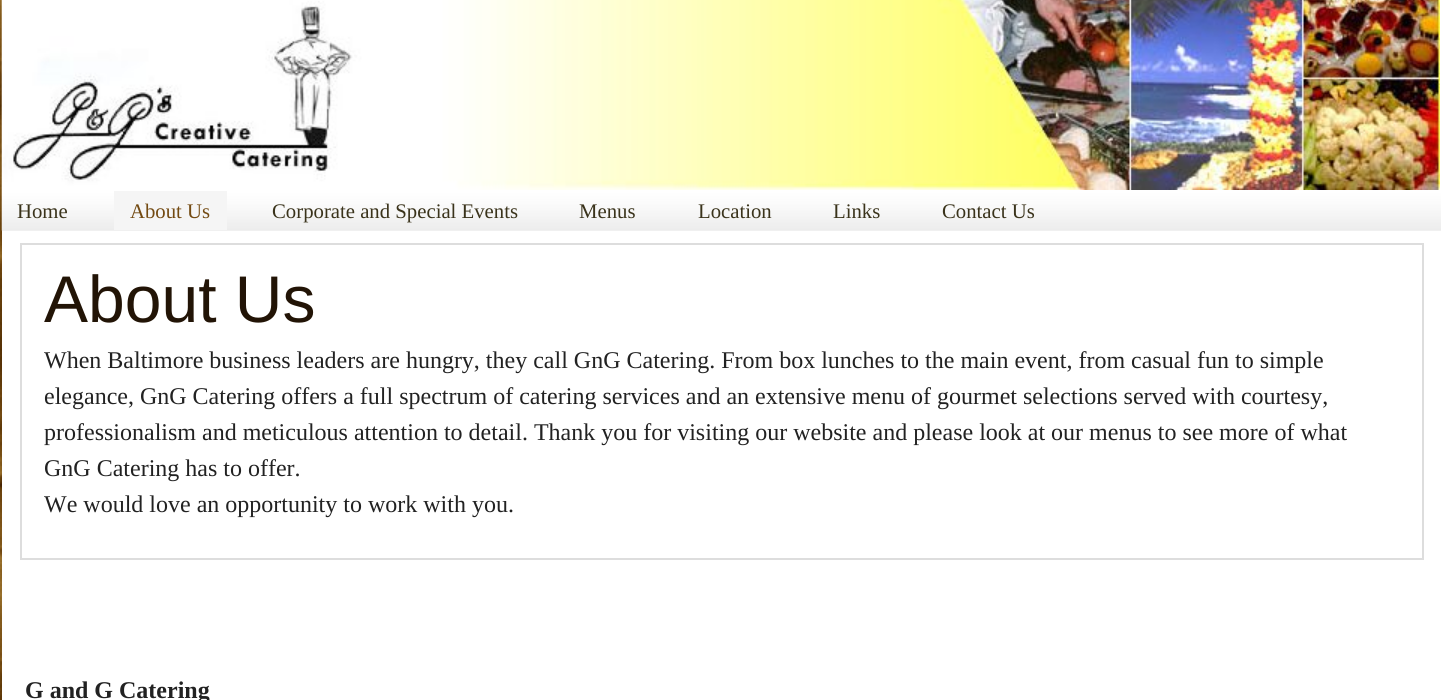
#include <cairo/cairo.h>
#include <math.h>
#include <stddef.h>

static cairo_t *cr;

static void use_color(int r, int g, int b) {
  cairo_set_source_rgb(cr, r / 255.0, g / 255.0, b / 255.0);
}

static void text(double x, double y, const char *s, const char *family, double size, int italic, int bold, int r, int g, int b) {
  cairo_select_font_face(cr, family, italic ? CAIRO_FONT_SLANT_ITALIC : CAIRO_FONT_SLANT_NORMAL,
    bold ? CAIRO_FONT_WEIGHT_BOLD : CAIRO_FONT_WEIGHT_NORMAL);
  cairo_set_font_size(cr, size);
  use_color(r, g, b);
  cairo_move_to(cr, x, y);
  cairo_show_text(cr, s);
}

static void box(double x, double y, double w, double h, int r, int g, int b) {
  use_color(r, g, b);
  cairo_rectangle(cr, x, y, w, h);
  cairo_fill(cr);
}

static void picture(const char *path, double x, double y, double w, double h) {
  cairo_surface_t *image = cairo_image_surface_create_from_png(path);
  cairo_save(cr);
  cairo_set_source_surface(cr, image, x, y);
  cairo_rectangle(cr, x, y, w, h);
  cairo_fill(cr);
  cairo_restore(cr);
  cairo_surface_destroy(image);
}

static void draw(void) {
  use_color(255, 255, 255);
  cairo_paint(cr);
  picture("img_01.png", 0, 0, 2, 700);
  picture("img_02.png", 1, 0, 1439, 190);
  box(2, 230, 1439, 1, 245, 245, 245);
  picture("img_03.png", 1, 190, 1440, 41);
  box(114, 191, 113, 39, 245, 245, 245);
  cairo_rectangle(cr, 21, 244, 1402, 315);
  use_color(221, 221, 221);
  cairo_stroke(cr);
  text(17, 218, "Home", "Liberation Serif", 20.75, 0, 0, 58, 51, 27);
  text(130, 218, "About Us", "Liberation Serif", 20.75, 0, 0, 115, 74, 18);
  text(272, 218, "Corporate and Special Events", "Liberation Serif", 20.75, 0, 0, 58, 51, 27);
  text(579, 218, "Menus", "Liberation Serif", 20.75, 0, 0, 58, 51, 27);
  text(698, 218, "Location", "Liberation Serif", 20.75, 0, 0, 58, 51, 27);
  text(833, 218, "Links", "Liberation Serif", 20.75, 0, 0, 58, 51, 27);
  text(942, 218, "Contact Us", "Liberation Serif", 20.75, 0, 0, 58, 51, 27);
  text(44, 322, "About Us", "Liberation Sans", 66, 0, 0, 34, 20, 6);
  text(44, 368, "When Baltimore business leaders are hungry, they call GnG Catering. From box lunches to the main event, from casual fun to simple", "Liberation Serif", 24, 0, 0, 34, 34, 34);
  text(44, 404, "elegance, GnG Catering offers a full spectrum of catering services and an extensive menu of gourmet selections served with courtesy,", "Liberation Serif", 24, 0, 0, 34, 34, 34);
  text(44, 440, "professionalism and meticulous attention to detail. Thank you for visiting our website and please look at our menus to see more of what", "Liberation Serif", 24, 0, 0, 34, 34, 34);
  text(44, 476, "GnG Catering has to offer.", "Liberation Serif", 24, 0, 0, 34, 34, 34);
  text(44, 512, "We would love an opportunity to work with you.", "Liberation Serif", 24, 0, 0, 34, 34, 34);
  text(25, 698, "G and G Catering", "Liberation Serif", 24, 0, 1, 34, 34, 34);
}

int main(void) {
  cairo_surface_t *surface = cairo_image_surface_create(CAIRO_FORMAT_RGB24, 1441, 700);
  cr = cairo_create(surface);
  cairo_font_options_t *options = cairo_font_options_create();
  cairo_font_options_set_hint_metrics(options, CAIRO_HINT_METRICS_OFF);
  cairo_font_options_set_hint_style(options, CAIRO_HINT_STYLE_NONE);
  cairo_set_font_options(cr, options);
  cairo_set_miter_limit(cr, 4);
  draw();
  cairo_surface_write_to_png(surface, "out.png");
  cairo_font_options_destroy(options);
  cairo_destroy(cr);
  cairo_surface_destroy(surface);
  return 0;
}
